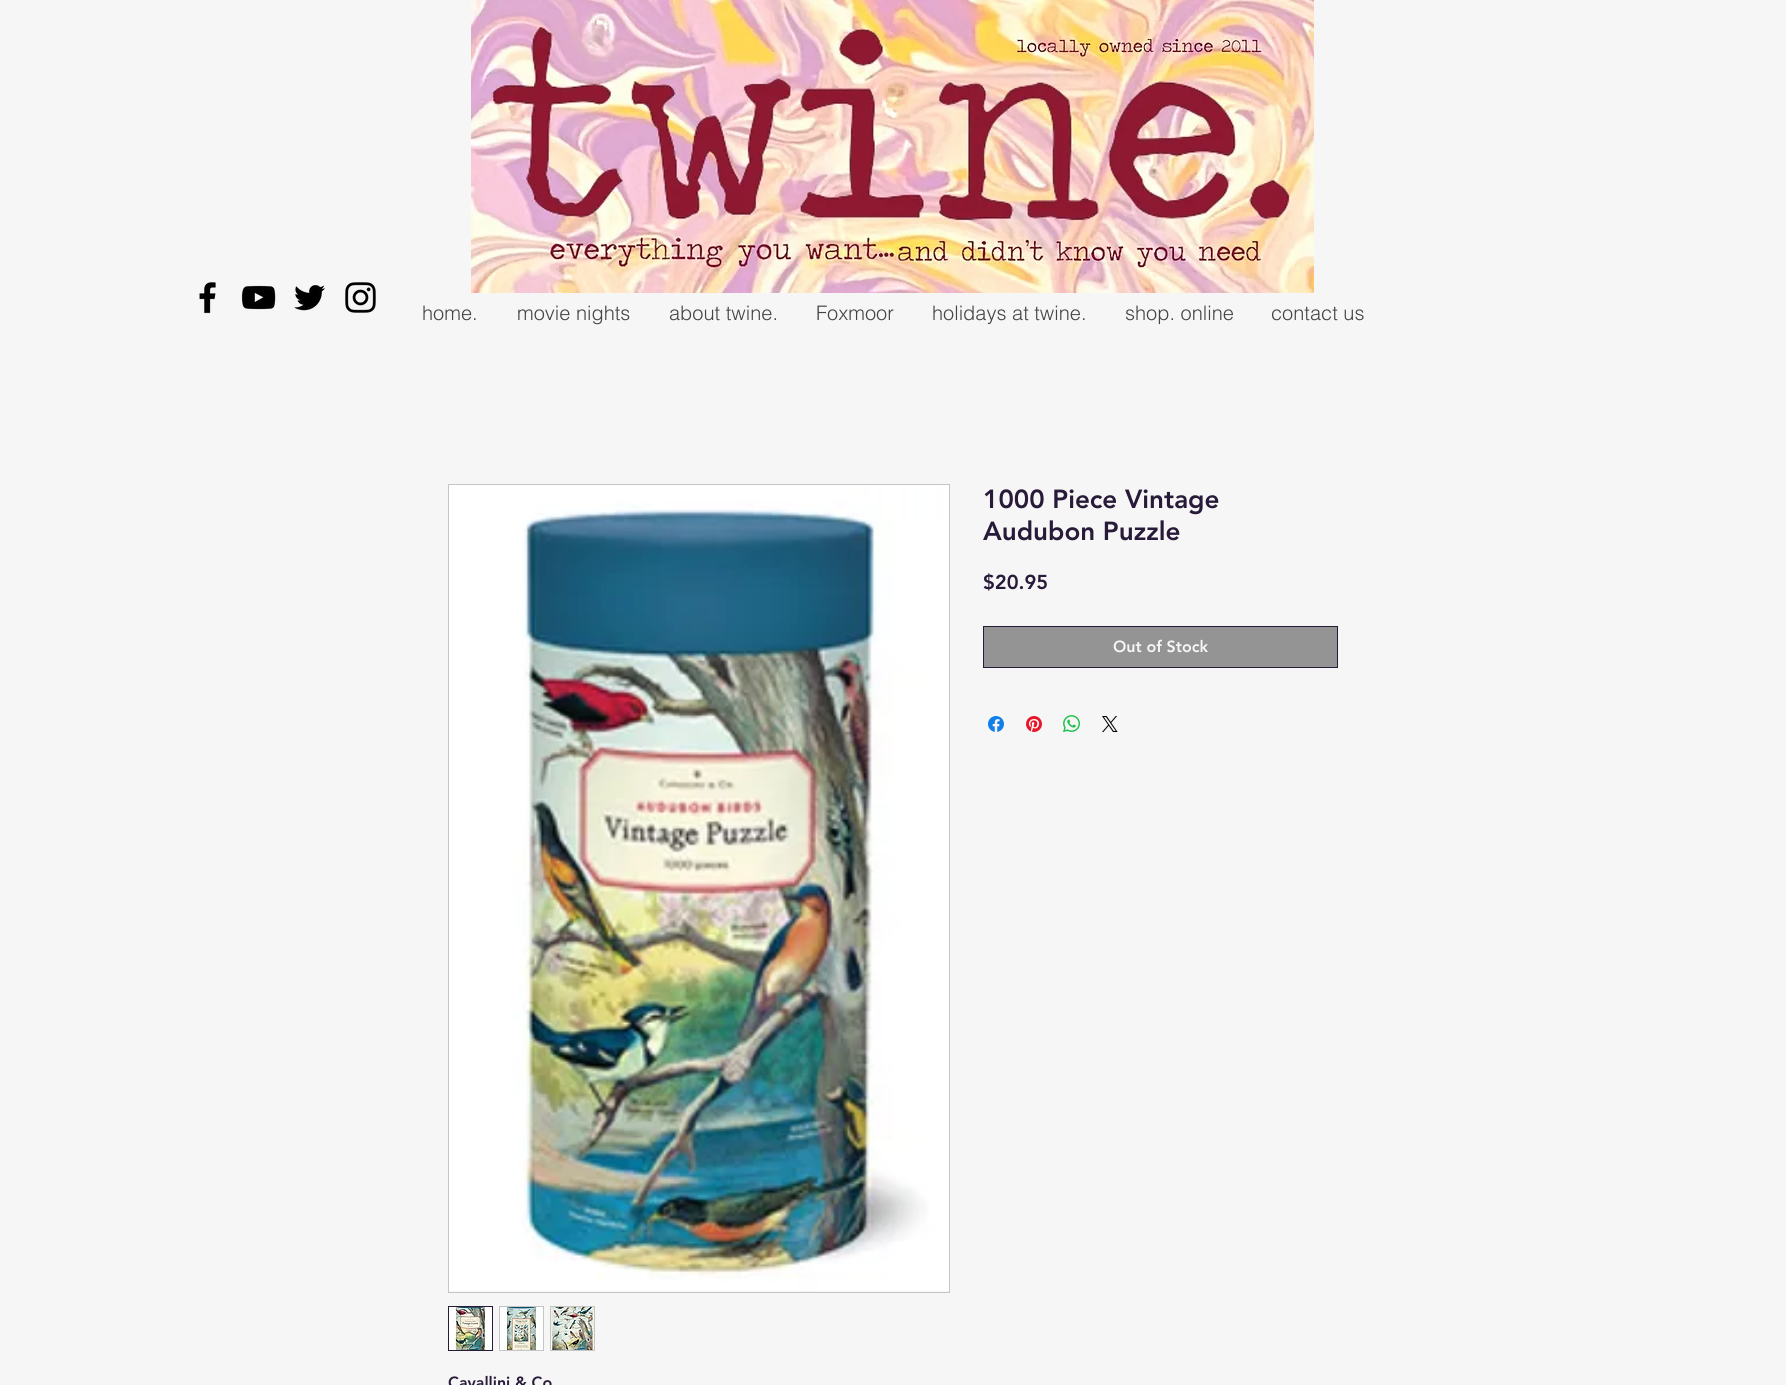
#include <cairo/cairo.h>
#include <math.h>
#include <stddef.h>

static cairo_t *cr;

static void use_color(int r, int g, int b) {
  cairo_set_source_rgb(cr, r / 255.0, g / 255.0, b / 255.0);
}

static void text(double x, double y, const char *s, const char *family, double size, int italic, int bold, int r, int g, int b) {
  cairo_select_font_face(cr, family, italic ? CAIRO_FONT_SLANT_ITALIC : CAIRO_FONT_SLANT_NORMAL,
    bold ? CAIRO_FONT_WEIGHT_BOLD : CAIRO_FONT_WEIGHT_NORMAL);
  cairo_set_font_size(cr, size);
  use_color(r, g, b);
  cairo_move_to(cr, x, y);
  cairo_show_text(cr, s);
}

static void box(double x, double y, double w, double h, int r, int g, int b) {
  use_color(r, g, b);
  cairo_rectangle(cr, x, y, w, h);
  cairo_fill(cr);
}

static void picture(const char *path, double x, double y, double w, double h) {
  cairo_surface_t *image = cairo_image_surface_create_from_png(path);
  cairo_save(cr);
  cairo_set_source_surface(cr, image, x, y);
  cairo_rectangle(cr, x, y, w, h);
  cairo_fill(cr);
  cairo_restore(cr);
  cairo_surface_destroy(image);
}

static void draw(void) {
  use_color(246, 246, 246);
  cairo_paint(cr);
  picture("img_01.png", 471, 0, 843, 293);
  picture("img_02.png", 199, 282, 17, 32);
  picture("img_03.png", 241, 285, 35, 25);
  picture("img_04.png", 294, 285, 31, 26);
  picture("img_05.png", 345, 282, 31, 31);
  use_color(148, 148, 148);
  cairo_rectangle(cr, 983.5, 626.5, 354, 41);
  cairo_fill_preserve(cr);
  use_color(40, 26, 57);
  cairo_set_line_width(cr, 1);
  cairo_stroke(cr);
  picture("img_06.png", 988, 716, 16, 16);
  picture("img_07.png", 1026, 716, 16, 16);
  picture("img_08.png", 1063, 715, 17, 17);
  picture("img_09.png", 1102, 716, 16, 16);
  cairo_rectangle(cr, 448.5, 484.5, 501, 808);
  use_color(197, 197, 197);
  cairo_stroke(cr);
  picture("img_10.png", 449, 485, 500, 806);
  cairo_rectangle(cr, 448.5, 1306.5, 44, 44);
  use_color(40, 26, 57);
  cairo_stroke(cr);
  picture("img_11.png", 449, 1307, 43, 43);
  box(499, 1306, 45, 45, 197, 197, 197);
  picture("img_12.png", 500, 1307, 43, 43);
  box(550, 1306, 45, 45, 197, 197, 197);
  picture("img_13.png", 551, 1307, 43, 43);
  text(422, 320, "home.", "helvetica Light", 20, 0, 0, 68, 68, 68);
  text(517, 320, "movie nights", "helvetica Light", 20, 0, 0, 68, 68, 68);
  text(669, 320, "about twine.", "helvetica Light", 20, 0, 0, 68, 68, 68);
  text(816, 320, "Foxmoor", "helvetica Light", 20, 0, 0, 68, 68, 68);
  text(932, 320, "holidays at twine.", "helvetica Light", 20, 0, 0, 68, 68, 68);
  text(1125, 320, "shop. online", "helvetica Light", 20, 0, 0, 68, 68, 68);
  text(1271, 320, "contact us", "helvetica Light", 20, 0, 0, 68, 68, 68);
  text(983, 508, "1000 Piece Vintage", "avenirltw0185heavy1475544 Black", 26, 0, 0, 40, 26, 57);
  text(983, 540, "Audubon Puzzle", "avenirltw0185heavy1475544 Black", 26, 0, 0, 40, 26, 57);
  text(983, 589, "$20.95", "avenirltw0185heavy1475544 Black", 20, 0, 0, 40, 26, 57);
  text(1113, 652, "Out of Stock", "avenirltw0185heavy1475544 Black", 16, 0, 0, 246, 246, 246);
  text(448, 1388, "Cavallini & Co", "avenirltw0185heavy1475544 Black", 16, 0, 0, 40, 26, 57);
}

int main(void) {
  cairo_surface_t *surface = cairo_image_surface_create(CAIRO_FORMAT_RGB24, 1786, 1385);
  cr = cairo_create(surface);
  cairo_font_options_t *options = cairo_font_options_create();
  cairo_font_options_set_hint_metrics(options, CAIRO_HINT_METRICS_OFF);
  cairo_font_options_set_hint_style(options, CAIRO_HINT_STYLE_NONE);
  cairo_set_font_options(cr, options);
  cairo_set_miter_limit(cr, 4);
  draw();
  cairo_surface_write_to_png(surface, "out.png");
  cairo_font_options_destroy(options);
  cairo_destroy(cr);
  cairo_surface_destroy(surface);
  return 0;
}
